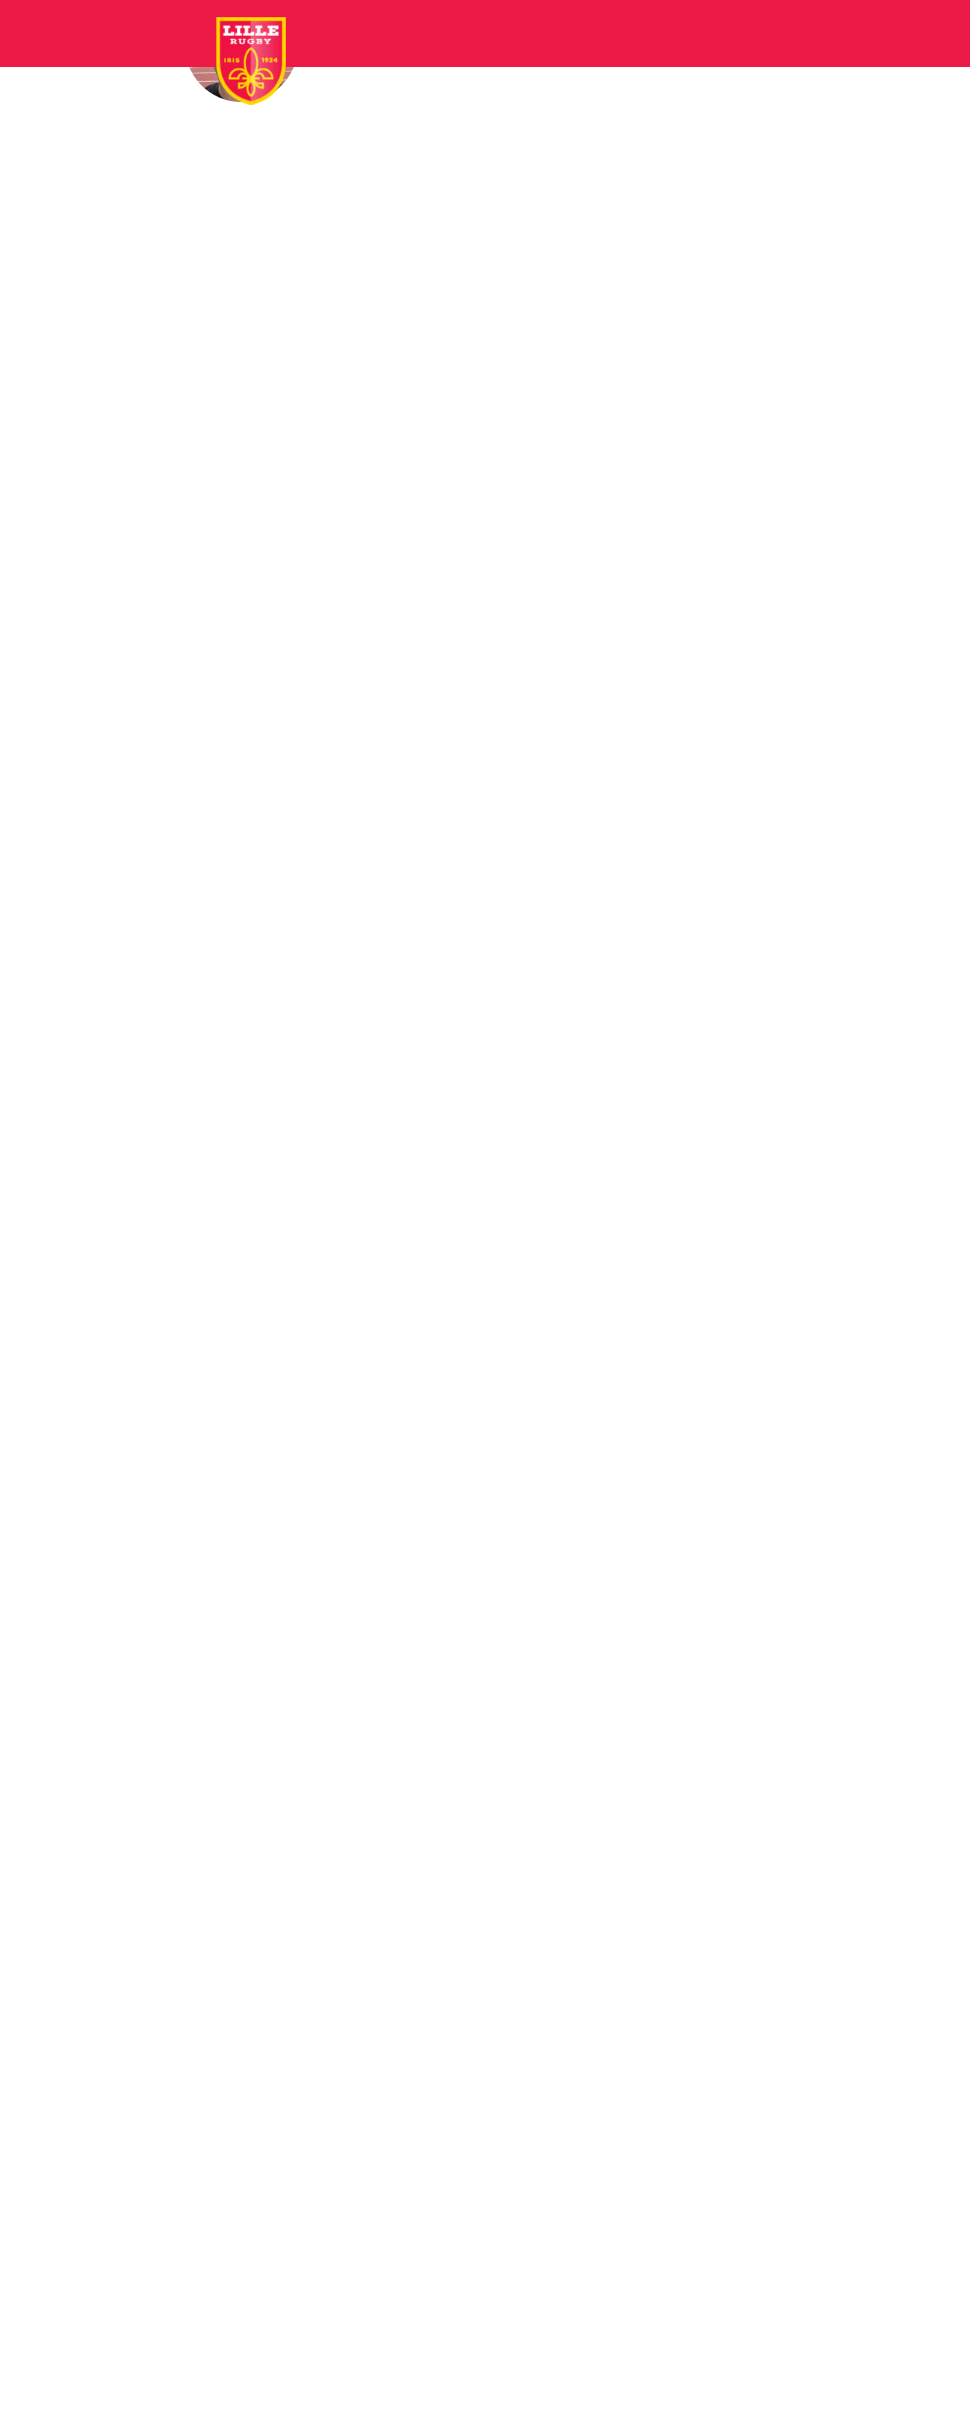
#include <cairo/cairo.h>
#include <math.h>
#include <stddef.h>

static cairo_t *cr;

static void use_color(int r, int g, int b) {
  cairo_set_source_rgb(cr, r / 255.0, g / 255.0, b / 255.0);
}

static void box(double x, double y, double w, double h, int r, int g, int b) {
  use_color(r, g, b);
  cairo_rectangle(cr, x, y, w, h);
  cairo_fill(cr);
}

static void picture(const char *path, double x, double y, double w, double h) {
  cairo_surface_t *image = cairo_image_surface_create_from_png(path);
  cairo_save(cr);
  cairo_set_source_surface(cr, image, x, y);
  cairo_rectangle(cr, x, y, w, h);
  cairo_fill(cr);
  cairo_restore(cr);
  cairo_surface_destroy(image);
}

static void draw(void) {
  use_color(255, 255, 255);
  cairo_paint(cr);
  box(0, 0, 970, 67, 236, 24, 70);
  picture("img_02.png", 189, 67, 105, 35);
  picture("img_01.png", 216, 17, 70, 88);
}

int main(void) {
  cairo_surface_t *surface = cairo_image_surface_create(CAIRO_FORMAT_RGB24, 970, 2414);
  cr = cairo_create(surface);
  cairo_font_options_t *options = cairo_font_options_create();
  cairo_font_options_set_hint_metrics(options, CAIRO_HINT_METRICS_OFF);
  cairo_font_options_set_hint_style(options, CAIRO_HINT_STYLE_NONE);
  cairo_set_font_options(cr, options);
  cairo_set_miter_limit(cr, 4);
  draw();
  cairo_surface_write_to_png(surface, "out.png");
  cairo_font_options_destroy(options);
  cairo_destroy(cr);
  cairo_surface_destroy(surface);
  return 0;
}
